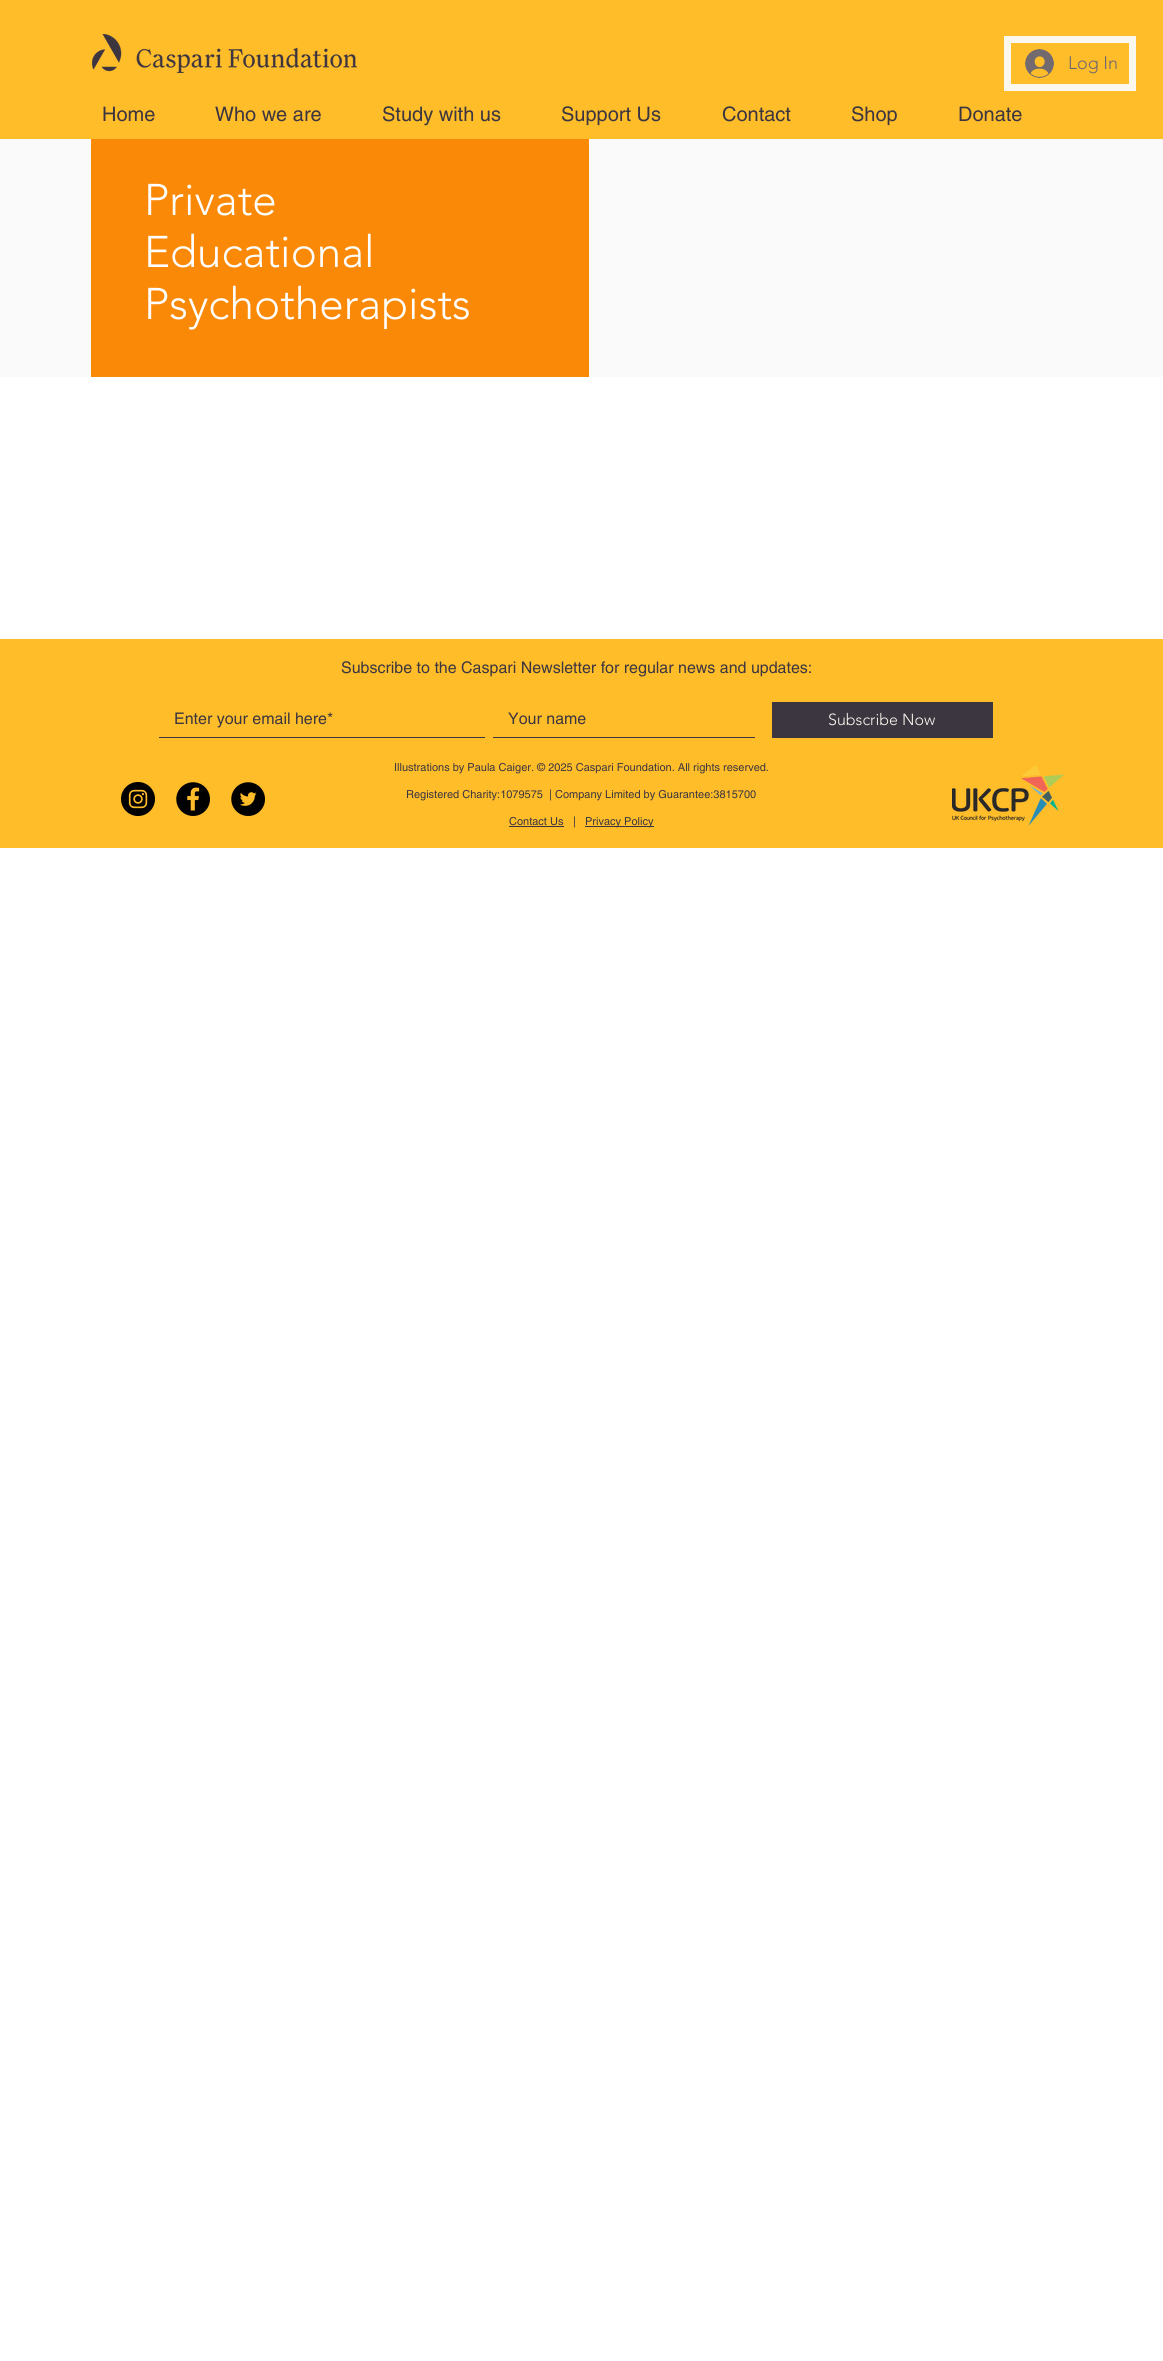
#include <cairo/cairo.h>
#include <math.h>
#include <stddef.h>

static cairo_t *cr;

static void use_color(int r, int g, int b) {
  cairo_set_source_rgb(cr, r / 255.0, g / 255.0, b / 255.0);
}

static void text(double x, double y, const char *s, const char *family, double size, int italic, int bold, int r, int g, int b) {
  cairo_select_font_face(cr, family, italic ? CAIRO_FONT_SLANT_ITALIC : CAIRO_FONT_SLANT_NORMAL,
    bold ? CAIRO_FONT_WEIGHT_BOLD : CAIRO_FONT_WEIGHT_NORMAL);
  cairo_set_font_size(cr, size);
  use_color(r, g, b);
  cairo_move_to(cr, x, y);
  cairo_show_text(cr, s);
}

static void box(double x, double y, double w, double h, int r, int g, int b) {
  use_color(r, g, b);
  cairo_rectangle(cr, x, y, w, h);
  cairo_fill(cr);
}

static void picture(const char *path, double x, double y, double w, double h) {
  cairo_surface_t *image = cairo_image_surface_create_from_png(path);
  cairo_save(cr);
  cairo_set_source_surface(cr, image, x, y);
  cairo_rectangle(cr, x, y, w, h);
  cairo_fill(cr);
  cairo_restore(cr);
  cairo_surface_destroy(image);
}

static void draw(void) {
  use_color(255, 255, 255);
  cairo_paint(cr);
  box(0, 0, 1163, 139, 255, 189, 41);
  cairo_rectangle(cr, 1007.5, 39.5, 125, 48);
  use_color(250, 247, 239);
  cairo_set_line_width(cr, 7);
  cairo_stroke(cr);
  picture("img_01.png", 1025, 49, 29, 29);
  picture("img_02.png", 92, 34, 265, 39);
  box(0, 139, 1163, 238, 250, 250, 250);
  box(91, 139, 498, 238, 250, 137, 7);
  box(0, 639, 1163, 209, 255, 189, 41);
  box(159, 737, 326, 1, 60, 54, 64);
  box(493, 737, 262, 1, 60, 54, 64);
  box(772, 702, 221, 36, 60, 54, 64);
  picture("img_03.png", 121, 782, 34, 34);
  picture("img_04.png", 176, 782, 34, 34);
  picture("img_05.png", 231, 782, 34, 34);
  box(509, 826, 55, 1, 60, 54, 64);
  box(585, 826, 69, 1, 60, 54, 64);
  picture("img_06.png", 952, 765, 112, 61);
  text(1068, 69, "Log In", "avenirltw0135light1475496 Light", 18, 0, 0, 108, 103, 112);
  text(102, 121, "Home", "helvetica", 20, 0, 0, 60, 54, 64);
  text(215, 121, "Who we are", "helvetica", 20, 0, 0, 60, 54, 64);
  text(382, 121, "Study with us", "helvetica", 20, 0, 0, 60, 54, 64);
  text(561, 121, "Support Us", "helvetica", 20, 0, 0, 60, 54, 64);
  text(722, 121, "Contact", "helvetica", 20, 0, 0, 60, 54, 64);
  text(851, 121, "Shop", "helvetica", 20, 0, 0, 60, 54, 64);
  text(958, 121, "Donate", "helvetica", 20, 0, 0, 60, 54, 64);
  text(144, 215, "Private", "avenirltw0135light1475496 Light", 44, 0, 0, 255, 255, 255);
  text(144, 267, "Educational", "avenirltw0135light1475496 Light", 44, 0, 0, 255, 255, 255);
  text(144, 319, "Psychotherapists", "avenirltw0135light1475496 Light", 44, 0, 0, 255, 255, 255);
  text(341, 673, "Subscribe to the Caspari Newsletter for regular news and updates:", "helvetica", 16, 0, 0, 60, 54, 64);
  text(174, 724, "Enter your email here*", "helvetica", 16, 0, 0, 60, 54, 64);
  text(508, 724, "Your name", "helvetica", 16, 0, 0, 60, 54, 64);
  text(828, 725, "Subscribe Now", "avenirltw0135light1475496 Light", 16, 0, 0, 250, 247, 239);
  text(394, 771, "Illustrations by Paula Caiger. © 2025 Caspari Foundation. All rights reserved.", "helvetica", 11, 0, 0, 60, 54, 64);
  text(406, 798, "Registered Charity:1079575  | Company Limited by Guarantee:3815700", "helvetica", 11, 0, 0, 60, 54, 64);
  text(509, 825, "Contact Us", "helvetica", 11, 0, 0, 60, 54, 64);
  text(573, 825, "|", "helvetica", 11, 0, 0, 60, 54, 64);
  text(585, 825, "Privacy Policy", "helvetica", 11, 0, 0, 60, 54, 64);
}

int main(void) {
  cairo_surface_t *surface = cairo_image_surface_create(CAIRO_FORMAT_RGB24, 1163, 2361);
  cr = cairo_create(surface);
  cairo_font_options_t *options = cairo_font_options_create();
  cairo_font_options_set_hint_metrics(options, CAIRO_HINT_METRICS_OFF);
  cairo_font_options_set_hint_style(options, CAIRO_HINT_STYLE_NONE);
  cairo_set_font_options(cr, options);
  cairo_set_miter_limit(cr, 4);
  draw();
  cairo_surface_write_to_png(surface, "out.png");
  cairo_font_options_destroy(options);
  cairo_destroy(cr);
  cairo_surface_destroy(surface);
  return 0;
}
